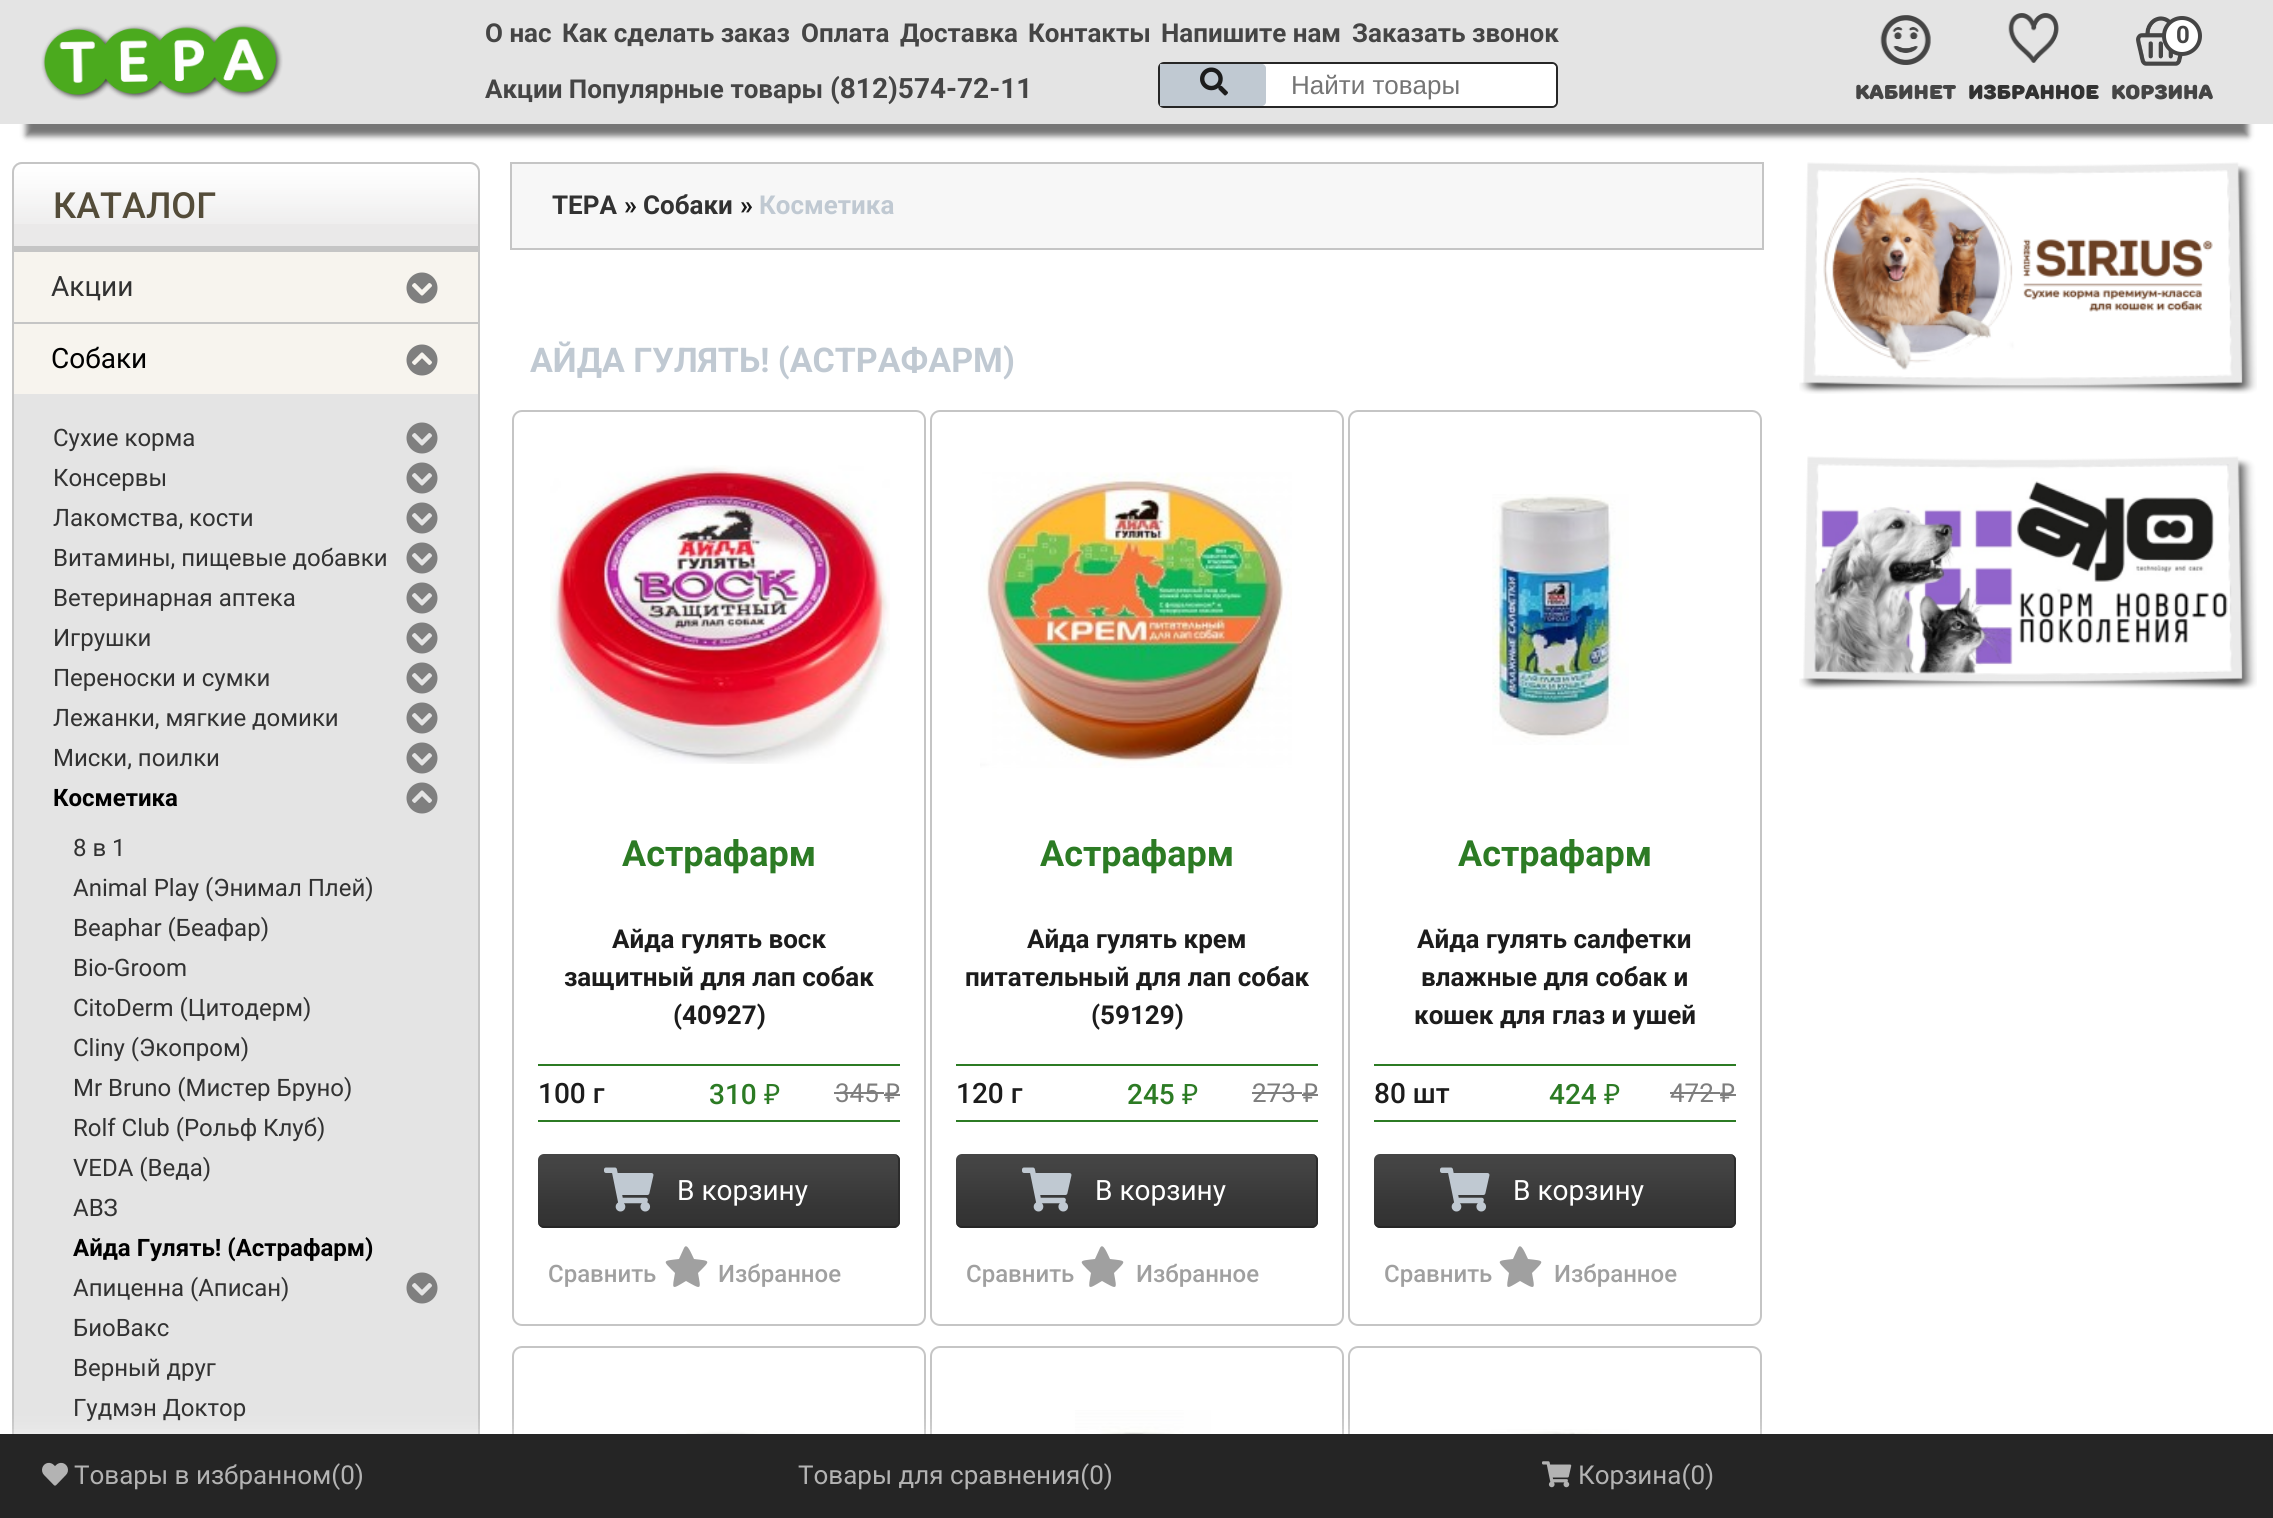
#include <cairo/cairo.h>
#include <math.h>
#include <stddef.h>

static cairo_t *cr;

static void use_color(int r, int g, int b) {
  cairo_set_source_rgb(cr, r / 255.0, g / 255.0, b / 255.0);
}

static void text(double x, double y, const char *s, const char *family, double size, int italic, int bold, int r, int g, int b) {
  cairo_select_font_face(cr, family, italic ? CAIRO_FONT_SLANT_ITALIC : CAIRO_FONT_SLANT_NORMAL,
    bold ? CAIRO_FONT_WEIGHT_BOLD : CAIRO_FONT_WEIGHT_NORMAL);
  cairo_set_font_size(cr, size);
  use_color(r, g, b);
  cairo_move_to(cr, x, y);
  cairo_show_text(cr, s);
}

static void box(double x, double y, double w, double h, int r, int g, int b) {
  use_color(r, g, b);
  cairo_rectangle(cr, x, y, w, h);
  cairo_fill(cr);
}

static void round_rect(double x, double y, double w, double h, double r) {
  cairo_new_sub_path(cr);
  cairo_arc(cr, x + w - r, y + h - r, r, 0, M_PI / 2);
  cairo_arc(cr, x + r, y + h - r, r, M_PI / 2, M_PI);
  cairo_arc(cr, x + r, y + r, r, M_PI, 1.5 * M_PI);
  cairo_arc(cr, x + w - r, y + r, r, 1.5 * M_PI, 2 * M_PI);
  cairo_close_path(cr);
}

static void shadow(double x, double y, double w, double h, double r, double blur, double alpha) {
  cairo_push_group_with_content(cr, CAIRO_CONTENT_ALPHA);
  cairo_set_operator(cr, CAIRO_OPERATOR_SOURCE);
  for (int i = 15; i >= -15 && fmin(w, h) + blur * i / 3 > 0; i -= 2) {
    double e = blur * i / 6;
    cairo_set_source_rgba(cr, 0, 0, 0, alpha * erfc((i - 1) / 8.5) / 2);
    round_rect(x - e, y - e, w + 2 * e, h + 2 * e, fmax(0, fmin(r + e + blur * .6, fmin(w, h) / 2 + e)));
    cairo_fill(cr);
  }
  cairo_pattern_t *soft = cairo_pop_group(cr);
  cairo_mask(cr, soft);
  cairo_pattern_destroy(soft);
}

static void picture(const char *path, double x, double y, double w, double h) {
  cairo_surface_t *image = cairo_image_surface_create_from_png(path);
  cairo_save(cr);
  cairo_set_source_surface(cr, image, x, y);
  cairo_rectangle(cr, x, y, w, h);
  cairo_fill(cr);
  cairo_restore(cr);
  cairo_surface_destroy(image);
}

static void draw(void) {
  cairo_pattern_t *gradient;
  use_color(255, 255, 255);
  cairo_paint(cr);
  use_color(56, 56, 56);
  shadow(26, 64, 2222, 72, 0, 3, 0.69);
  box(0, 0, 2273, 124, 228, 228, 228);
  picture("img_01.png", 41, 23, 242, 78);
  round_rect(1159, 63, 398, 44, 5);
  use_color(38, 38, 38);
  cairo_stroke(cr);
  use_color(255, 255, 255);
  round_rect(1160, 64, 396, 42, 4);
  cairo_fill(cr);
  use_color(192, 201, 210);
  cairo_new_path(cr);
  cairo_move_to(cr, 1160, 64);
  cairo_line_to(cr, 1262, 64);
  cairo_curve_to(cr, 1264, 64, 1266, 66, 1266, 68);
  cairo_line_to(cr, 1266, 102);
  cairo_curve_to(cr, 1266, 104, 1264, 106, 1262, 106);
  cairo_line_to(cr, 1160, 106);
  cairo_close_path(cr);
  cairo_fill(cr);
  picture("img_02.png", 1200, 67, 28, 29);
  picture("img_03.png", 1880, 15, 51, 50);
  picture("img_04.png", 2008, 13, 51, 50);
  picture("img_05.png", 2136, 16, 47, 50);
  use_color(255, 255, 255);
  cairo_arc(cr, 2182, 36, 18, 0, 2 * M_PI);
  cairo_fill_preserve(cr);
  use_color(69, 69, 69);
  cairo_set_line_width(cr, 4);
  cairo_stroke(cr);
  use_color(234, 233, 233);
  cairo_new_path(cr);
  cairo_move_to(cr, 22, 162);
  cairo_line_to(cr, 470, 162);
  cairo_curve_to(cr, 475.5, 162, 480, 166.5, 480, 172);
  cairo_line_to(cr, 480, 248);
  cairo_line_to(cr, 12, 248);
  cairo_line_to(cr, 12, 172);
  cairo_curve_to(cr, 12, 166.5, 16.5, 162, 22, 162);
  cairo_close_path(cr);
  cairo_fill(cr);
  picture("img_06.png", 12, 164, 468, 60);
  cairo_new_path(cr);
  cairo_move_to(cr, 22, 163);
  cairo_line_to(cr, 470, 163);
  cairo_curve_to(cr, 475, 163, 479, 167, 479, 172);
  cairo_line_to(cr, 479, 247);
  cairo_line_to(cr, 13, 247);
  cairo_line_to(cr, 13, 172);
  cairo_curve_to(cr, 13, 167, 17, 163, 22, 163);
  cairo_close_path(cr);
  use_color(197, 197, 197);
  cairo_set_line_width(cr, 2);
  cairo_stroke(cr);
  box(14, 252, 464, 142, 247, 244, 238);
  cairo_rectangle(cr, 13, 249, 466, 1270);
  use_color(197, 197, 197);
  cairo_stroke(cr);
  box(14, 250, 464, 2, 197, 197, 197);
  picture("img_07.png", 406, 272, 32, 32);
  box(14, 322, 464, 2, 197, 197, 197);
  picture("img_08.png", 406, 344, 32, 32);
  box(14, 394, 464, 1040, 228, 228, 228);
  picture("img_09.png", 406, 422, 32, 32);
  picture("img_09.png", 406, 462, 32, 32);
  picture("img_09.png", 406, 502, 32, 32);
  picture("img_09.png", 406, 542, 32, 32);
  picture("img_09.png", 406, 582, 32, 32);
  picture("img_09.png", 406, 622, 32, 32);
  picture("img_09.png", 406, 662, 32, 32);
  picture("img_09.png", 406, 702, 32, 32);
  picture("img_09.png", 406, 742, 32, 32);
  picture("img_10.png", 406, 782, 32, 32);
  picture("img_09.png", 406, 1272, 32, 32);
  use_color(247, 247, 247);
  cairo_rectangle(cr, 511, 163, 1252, 86);
  cairo_fill_preserve(cr);
  use_color(197, 197, 197);
  cairo_stroke(cr);
  round_rect(513, 411, 412, 914, 9);
  cairo_stroke(cr);
  picture("img_11.png", 550, 465, 340, 299);
  box(538, 1064, 362, 2, 44, 123, 36);
  box(538, 1120, 362, 2, 44, 123, 36);
  box(834, 1092, 50, 2, 126, 126, 126);
  box(884, 1094, 16, 2, 126, 126, 126);
  cairo_save(cr);
  round_rect(538, 1154, 362, 74, 6);
  cairo_clip(cr);
  gradient = cairo_pattern_create_linear(718, 1154, 718, 1226);
  cairo_pattern_add_color_stop_rgba(gradient, 0, 0.271, 0.271, 0.271, 1);
  cairo_pattern_add_color_stop_rgba(gradient, 0.18, 0.263, 0.263, 0.263, 1);
  cairo_pattern_add_color_stop_rgba(gradient, 0.73, 0.212, 0.212, 0.212, 1);
  cairo_pattern_add_color_stop_rgba(gradient, 1, 0.196, 0.196, 0.196, 1);
  cairo_set_source(cr, gradient);
  cairo_pattern_destroy(gradient);
  cairo_new_path(cr);
  cairo_move_to(cr, 544, 1154);
  cairo_line_to(cr, 894, 1154);
  cairo_curve_to(cr, 897.5, 1154, 900, 1156.5, 900, 1160);
  cairo_line_to(cr, 900, 1226);
  cairo_line_to(cr, 538, 1226);
  cairo_line_to(cr, 538, 1160);
  cairo_curve_to(cr, 538, 1156.5, 540.5, 1154, 544, 1154);
  cairo_close_path(cr);
  cairo_fill(cr);
  gradient = cairo_pattern_create_linear(718, 1226, 718, 1298);
  cairo_pattern_add_color_stop_rgba(gradient, 0, 0.271, 0.271, 0.271, 1);
  cairo_pattern_add_color_stop_rgba(gradient, 0.18, 0.263, 0.263, 0.263, 1);
  cairo_pattern_add_color_stop_rgba(gradient, 0.73, 0.212, 0.212, 0.212, 1);
  cairo_pattern_add_color_stop_rgba(gradient, 1, 0.196, 0.196, 0.196, 1);
  cairo_set_source(cr, gradient);
  cairo_pattern_destroy(gradient);
  cairo_rectangle(cr, 538, 1226, 362, 2);
  cairo_fill(cr);
  cairo_restore(cr);
  use_color(44, 44, 44);
  cairo_new_path(cr);
  cairo_move_to(cr, 900, 1160);
  cairo_curve_to(cr, 900, 1157, 897, 1154, 894, 1154);
  cairo_curve_to(cr, 896, 1154, 898, 1157, 898, 1160);
  cairo_line_to(cr, 898, 1222);
  cairo_curve_to(cr, 898, 1223, 898, 1224, 897, 1225);
  cairo_line_to(cr, 898, 1226);
  cairo_curve_to(cr, 899, 1225, 900, 1224, 900, 1222);
  cairo_close_path(cr);
  cairo_fill(cr);
  use_color(38, 38, 38);
  cairo_new_path(cr);
  cairo_move_to(cr, 544, 1228);
  cairo_line_to(cr, 894, 1228);
  cairo_curve_to(cr, 896, 1228, 897, 1227, 898, 1226);
  cairo_line_to(cr, 897, 1225);
  cairo_curve_to(cr, 896, 1226, 895, 1226, 894, 1226);
  cairo_line_to(cr, 544, 1226);
  cairo_curve_to(cr, 541, 1226, 538, 1224, 538, 1222);
  cairo_curve_to(cr, 538, 1225, 541, 1228, 544, 1228);
  cairo_close_path(cr);
  cairo_fill(cr);
  picture("img_12.png", 604, 1167, 50, 45);
  use_color(160, 160, 160);
  cairo_new_path(cr);
  cairo_move_to(cr, 684, 1248);
  cairo_line_to(cr, 679, 1259);
  cairo_curve_to(cr, 662, 1261, 662, 1260, 675, 1273);
  cairo_curve_to(cr, 672, 1290, 671, 1290, 686, 1281);
  cairo_curve_to(cr, 702, 1290, 701, 1290, 698, 1273);
  cairo_curve_to(cr, 711, 1260, 711, 1261, 694, 1259);
  cairo_curve_to(cr, 691, 1253, 687, 1242, 684, 1248);
  cairo_close_path(cr);
  cairo_fill(cr);
  round_rect(931, 411, 412, 914, 9);
  use_color(197, 197, 197);
  cairo_stroke(cr);
  picture("img_13.png", 980, 472, 312, 296);
  box(956, 1064, 362, 2, 44, 123, 36);
  box(956, 1120, 362, 2, 44, 123, 36);
  box(1252, 1092, 50, 2, 126, 126, 126);
  box(1302, 1094, 16, 2, 126, 126, 126);
  cairo_save(cr);
  round_rect(956, 1154, 362, 74, 6);
  cairo_clip(cr);
  gradient = cairo_pattern_create_linear(1136, 1154, 1136, 1226);
  cairo_pattern_add_color_stop_rgba(gradient, 0, 0.271, 0.271, 0.271, 1);
  cairo_pattern_add_color_stop_rgba(gradient, 0.18, 0.263, 0.263, 0.263, 1);
  cairo_pattern_add_color_stop_rgba(gradient, 0.73, 0.212, 0.212, 0.212, 1);
  cairo_pattern_add_color_stop_rgba(gradient, 1, 0.196, 0.196, 0.196, 1);
  cairo_set_source(cr, gradient);
  cairo_pattern_destroy(gradient);
  cairo_new_path(cr);
  cairo_move_to(cr, 962, 1154);
  cairo_line_to(cr, 1312, 1154);
  cairo_curve_to(cr, 1315.5, 1154, 1318, 1156.5, 1318, 1160);
  cairo_line_to(cr, 1318, 1226);
  cairo_line_to(cr, 956, 1226);
  cairo_line_to(cr, 956, 1160);
  cairo_curve_to(cr, 956, 1156.5, 958.5, 1154, 962, 1154);
  cairo_close_path(cr);
  cairo_fill(cr);
  gradient = cairo_pattern_create_linear(1136, 1226, 1136, 1298);
  cairo_pattern_add_color_stop_rgba(gradient, 0, 0.271, 0.271, 0.271, 1);
  cairo_pattern_add_color_stop_rgba(gradient, 0.18, 0.263, 0.263, 0.263, 1);
  cairo_pattern_add_color_stop_rgba(gradient, 0.73, 0.212, 0.212, 0.212, 1);
  cairo_pattern_add_color_stop_rgba(gradient, 1, 0.196, 0.196, 0.196, 1);
  cairo_set_source(cr, gradient);
  cairo_pattern_destroy(gradient);
  cairo_rectangle(cr, 956, 1226, 362, 2);
  cairo_fill(cr);
  cairo_restore(cr);
  use_color(44, 44, 44);
  cairo_new_path(cr);
  cairo_move_to(cr, 1318, 1160);
  cairo_curve_to(cr, 1318, 1157, 1315, 1154, 1312, 1154);
  cairo_curve_to(cr, 1314, 1154, 1316, 1157, 1316, 1160);
  cairo_line_to(cr, 1316, 1222);
  cairo_curve_to(cr, 1316, 1223, 1316, 1224, 1315, 1225);
  cairo_line_to(cr, 1316, 1226);
  cairo_curve_to(cr, 1317, 1225, 1318, 1224, 1318, 1222);
  cairo_close_path(cr);
  cairo_fill(cr);
  use_color(38, 38, 38);
  cairo_new_path(cr);
  cairo_move_to(cr, 962, 1228);
  cairo_line_to(cr, 1312, 1228);
  cairo_curve_to(cr, 1314, 1228, 1315, 1227, 1316, 1226);
  cairo_line_to(cr, 1315, 1225);
  cairo_curve_to(cr, 1314, 1226, 1313, 1226, 1312, 1226);
  cairo_line_to(cr, 962, 1226);
  cairo_curve_to(cr, 959, 1226, 956, 1224, 956, 1222);
  cairo_curve_to(cr, 956, 1225, 959, 1228, 962, 1228);
  cairo_close_path(cr);
  cairo_fill(cr);
  picture("img_12.png", 1022, 1167, 50, 45);
  use_color(160, 160, 160);
  cairo_new_path(cr);
  cairo_move_to(cr, 1100, 1248);
  cairo_line_to(cr, 1095, 1259);
  cairo_curve_to(cr, 1078, 1261, 1078, 1260, 1091, 1273);
  cairo_curve_to(cr, 1088, 1290, 1087, 1290, 1102, 1281);
  cairo_curve_to(cr, 1118, 1290, 1117, 1290, 1114, 1273);
  cairo_curve_to(cr, 1127, 1260, 1127, 1261, 1110, 1259);
  cairo_curve_to(cr, 1107, 1253, 1103, 1242, 1100, 1248);
  cairo_close_path(cr);
  cairo_fill(cr);
  round_rect(1349, 411, 412, 914, 9);
  use_color(197, 197, 197);
  cairo_stroke(cr);
  picture("img_14.png", 1492, 494, 137, 251);
  box(1374, 1064, 362, 2, 44, 123, 36);
  box(1374, 1120, 362, 2, 44, 123, 36);
  box(1670, 1092, 50, 2, 126, 126, 126);
  box(1720, 1094, 16, 2, 126, 126, 126);
  cairo_save(cr);
  round_rect(1374, 1154, 362, 74, 6);
  cairo_clip(cr);
  gradient = cairo_pattern_create_linear(1554, 1154, 1554, 1226);
  cairo_pattern_add_color_stop_rgba(gradient, 0, 0.271, 0.271, 0.271, 1);
  cairo_pattern_add_color_stop_rgba(gradient, 0.18, 0.263, 0.263, 0.263, 1);
  cairo_pattern_add_color_stop_rgba(gradient, 0.73, 0.212, 0.212, 0.212, 1);
  cairo_pattern_add_color_stop_rgba(gradient, 1, 0.196, 0.196, 0.196, 1);
  cairo_set_source(cr, gradient);
  cairo_pattern_destroy(gradient);
  cairo_new_path(cr);
  cairo_move_to(cr, 1380, 1154);
  cairo_line_to(cr, 1730, 1154);
  cairo_curve_to(cr, 1733.5, 1154, 1736, 1156.5, 1736, 1160);
  cairo_line_to(cr, 1736, 1226);
  cairo_line_to(cr, 1374, 1226);
  cairo_line_to(cr, 1374, 1160);
  cairo_curve_to(cr, 1374, 1156.5, 1376.5, 1154, 1380, 1154);
  cairo_close_path(cr);
  cairo_fill(cr);
  gradient = cairo_pattern_create_linear(1554, 1226, 1554, 1298);
  cairo_pattern_add_color_stop_rgba(gradient, 0, 0.271, 0.271, 0.271, 1);
  cairo_pattern_add_color_stop_rgba(gradient, 0.18, 0.263, 0.263, 0.263, 1);
  cairo_pattern_add_color_stop_rgba(gradient, 0.73, 0.212, 0.212, 0.212, 1);
  cairo_pattern_add_color_stop_rgba(gradient, 1, 0.196, 0.196, 0.196, 1);
  cairo_set_source(cr, gradient);
  cairo_pattern_destroy(gradient);
  cairo_rectangle(cr, 1374, 1226, 362, 2);
  cairo_fill(cr);
  cairo_restore(cr);
  use_color(44, 44, 44);
  cairo_new_path(cr);
  cairo_move_to(cr, 1736, 1160);
  cairo_curve_to(cr, 1736, 1157, 1733, 1154, 1730, 1154);
  cairo_curve_to(cr, 1732, 1154, 1734, 1157, 1734, 1160);
  cairo_line_to(cr, 1734, 1222);
  cairo_curve_to(cr, 1734, 1223, 1734, 1224, 1733, 1225);
  cairo_line_to(cr, 1734, 1226);
  cairo_curve_to(cr, 1735, 1225, 1736, 1224, 1736, 1222);
  cairo_close_path(cr);
  cairo_fill(cr);
  use_color(38, 38, 38);
  cairo_new_path(cr);
  cairo_move_to(cr, 1380, 1228);
  cairo_line_to(cr, 1730, 1228);
  cairo_curve_to(cr, 1732, 1228, 1733, 1227, 1734, 1226);
  cairo_line_to(cr, 1733, 1225);
  cairo_curve_to(cr, 1732, 1226, 1731, 1226, 1730, 1226);
  cairo_line_to(cr, 1380, 1226);
  cairo_curve_to(cr, 1377, 1226, 1374, 1224, 1374, 1222);
  cairo_curve_to(cr, 1374, 1225, 1377, 1228, 1380, 1228);
  cairo_close_path(cr);
  cairo_fill(cr);
  picture("img_12.png", 1440, 1167, 50, 45);
  use_color(160, 160, 160);
  cairo_new_path(cr);
  cairo_move_to(cr, 1518, 1248);
  cairo_line_to(cr, 1513, 1259);
  cairo_curve_to(cr, 1496, 1261, 1496, 1260, 1509, 1273);
  cairo_curve_to(cr, 1506, 1290, 1505, 1290, 1520, 1281);
  cairo_curve_to(cr, 1536, 1290, 1535, 1290, 1532, 1273);
  cairo_curve_to(cr, 1545, 1260, 1545, 1261, 1528, 1259);
  cairo_curve_to(cr, 1525, 1253, 1521, 1242, 1518, 1248);
  cairo_close_path(cr);
  cairo_fill(cr);
  round_rect(513, 1347, 412, 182, 9);
  use_color(197, 197, 197);
  cairo_stroke(cr);
  picture("img_15.png", 658, 1430, 137, 4);
  round_rect(931, 1347, 412, 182, 9);
  cairo_stroke(cr);
  picture("img_16.png", 1075, 1410, 136, 24);
  round_rect(1349, 1347, 412, 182, 9);
  cairo_stroke(cr);
  picture("img_17.png", 1491, 1429, 138, 5);
  picture("img_18.png", 1799, 162, 458, 232);
  picture("img_19.png", 1799, 456, 458, 234);
  use_color(255, 255, 255);
  shadow(0, 1434, 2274, 84, 0, 10, 0.5);
  box(0, 1434, 2273, 84, 37, 37, 37);
  picture("img_20.png", 42, 1462, 26, 24);
  picture("img_21.png", 1542, 1461, 30, 27);
  text(485, 42, "О нас", "Roboto", 26, 0, 1, 69, 69, 69);
  text(562, 42, "Как сделать заказ", "Roboto", 26, 0, 1, 69, 69, 69);
  text(801, 42, "Оплата", "Roboto", 26, 0, 1, 69, 69, 69);
  text(900, 42, "Доставка", "Roboto", 26, 0, 1, 69, 69, 69);
  text(1028, 42, "Контакты", "Roboto", 26, 0, 1, 69, 69, 69);
  text(1161, 42, "Напишите нам", "Roboto", 26, 0, 1, 69, 69, 69);
  text(1352, 42, "Заказать звонок", "Roboto", 26, 0, 1, 69, 69, 69);
  text(485, 98, "Акции Популярные товары", "Roboto", 26, 0, 1, 69, 69, 69);
  text(830, 98, "(812)574-72-11", "Roboto", 28, 0, 1, 69, 69, 69);
  text(1291, 94, "Найти товары", "Liberation Sans", 26, 0, 0, 117, 117, 117);
  text(1855, 99, "КАБИНЕТ", "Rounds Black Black", 20, 0, 0, 69, 69, 69);
  text(1968, 99, "ИЗБРАННОЕ", "Rounds Black Black", 20, 0, 0, 50, 50, 50);
  text(2176, 43, "0", "Roboto", 24, 0, 1, 69, 69, 69);
  text(2111, 99, "КОРЗИНА", "Rounds Black Black", 20, 0, 0, 69, 69, 69);
  text(53, 218, "КАТАЛОГ", "Roboto Medium", 36, 0, 0, 84, 76, 57);
  text(51, 296, "Акции", "Roboto", 28, 0, 0, 50, 50, 50);
  text(51, 368, "Собаки", "Roboto", 28, 0, 0, 0, 0, 0);
  text(53, 446, "Сухие корма", "Roboto", 24, 0, 0, 50, 50, 50);
  text(53, 486, "Консервы", "Roboto", 24, 0, 0, 50, 50, 50);
  text(53, 526, "Лакомства, кости", "Roboto", 24, 0, 0, 50, 50, 50);
  text(53, 566, "Витамины, пищевые добавки", "Roboto", 24, 0, 0, 50, 50, 50);
  text(53, 606, "Ветеринарная аптека", "Roboto", 24, 0, 0, 50, 50, 50);
  text(53, 646, "Игрушки", "Roboto", 24, 0, 0, 50, 50, 50);
  text(53, 686, "Переноски и сумки", "Roboto", 24, 0, 0, 50, 50, 50);
  text(53, 726, "Лежанки, мягкие домики", "Roboto", 24, 0, 0, 50, 50, 50);
  text(53, 766, "Миски, поилки", "Roboto", 24, 0, 0, 50, 50, 50);
  text(53, 806, "Косметика", "Roboto", 24, 0, 1, 0, 0, 0);
  text(73, 856, "8 в 1", "Roboto", 24, 0, 0, 50, 50, 50);
  text(73, 896, "Animal Play (Энимал Плей)", "Roboto", 24, 0, 0, 50, 50, 50);
  text(73, 936, "Beaphar (Беафар)", "Roboto", 24, 0, 0, 50, 50, 50);
  text(73, 976, "Bio-Groom", "Roboto", 24, 0, 0, 50, 50, 50);
  text(73, 1016, "CitoDerm (Цитодерм)", "Roboto", 24, 0, 0, 50, 50, 50);
  text(73, 1056, "Cliny (Экопром)", "Roboto", 24, 0, 0, 50, 50, 50);
  text(73, 1096, "Mr Bruno (Мистер Бруно)", "Roboto", 24, 0, 0, 50, 50, 50);
  text(73, 1136, "Rolf Club (Рольф Клуб)", "Roboto", 24, 0, 0, 50, 50, 50);
  text(73, 1176, "VEDA (Веда)", "Roboto", 24, 0, 0, 50, 50, 50);
  text(73, 1216, "АВЗ", "Roboto", 24, 0, 0, 50, 50, 50);
  text(73, 1256, "Айда Гулять! (Астрафарм)", "Roboto", 24, 0, 1, 0, 0, 0);
  text(73, 1296, "Апиценна (Аписан)", "Roboto", 24, 0, 0, 50, 50, 50);
  text(73, 1336, "БиоВакс", "Roboto", 24, 0, 0, 50, 50, 50);
  text(73, 1376, "Верный друг", "Roboto", 24, 0, 0, 50, 50, 50);
  text(73, 1416, "Гудмэн Доктор", "Roboto", 24, 0, 0, 50, 50, 50);
  text(552, 214, "ТЕРА", "Roboto", 26, 0, 1, 50, 50, 50);
  text(624, 214, "»", "Roboto", 26, 0, 1, 28, 28, 28);
  text(643, 214, "Собаки", "Roboto", 26, 0, 1, 50, 50, 50);
  text(740, 214, "»", "Roboto", 26, 0, 1, 28, 28, 28);
  text(759, 214, "Косметика", "Roboto", 26, 0, 1, 192, 201, 210);
  text(530, 372, "АЙДА ГУЛЯТЬ! (АСТРАФАРМ)", "Roboto", 34, 0, 1, 192, 201, 210);
  text(622, 866, "Астрафарм", "Roboto", 36, 0, 1, 44, 123, 36);
  text(612, 948, "Айда гулять воск", "Roboto", 26, 0, 1, 28, 28, 28);
  text(564, 986, "защитный для лап собак", "Roboto", 26, 0, 1, 28, 28, 28);
  text(673, 1024, "(40927)", "Roboto", 26, 0, 1, 28, 28, 28);
  text(538, 1103, "100 г", "Roboto Medium", 28, 0, 0, 28, 28, 28);
  text(709, 1104, "310", "Roboto Medium", 28, 0, 0, 44, 123, 36);
  text(764, 1104, "₽", "Noto Sans", 28, 0, 0, 44, 123, 36);
  text(835, 1102, "345", "Roboto", 26, 0, 0, 126, 126, 126);
  text(885, 1102, "₽", "Noto Sans", 26, 0, 0, 126, 126, 126);
  text(677, 1200, "В корзину", "Roboto", 28, 0, 0, 255, 255, 255);
  text(548, 1282, "Сравнить", "Roboto Medium", 24, 0, 0, 160, 160, 160);
  text(718, 1282, "Избранное", "Roboto Medium", 24, 0, 0, 160, 160, 160);
  text(1040, 866, "Астрафарм", "Roboto", 36, 0, 1, 44, 123, 36);
  text(1027, 948, "Айда гулять крем", "Roboto", 26, 0, 1, 28, 28, 28);
  text(965, 986, "питательный для лап собак", "Roboto", 26, 0, 1, 28, 28, 28);
  text(1091, 1024, "(59129)", "Roboto", 26, 0, 1, 28, 28, 28);
  text(956, 1103, "120 г", "Roboto Medium", 28, 0, 0, 28, 28, 28);
  text(1127, 1104, "245", "Roboto Medium", 28, 0, 0, 44, 123, 36);
  text(1182, 1104, "₽", "Noto Sans", 28, 0, 0, 44, 123, 36);
  text(1252, 1102, "273", "Roboto", 26, 0, 0, 126, 126, 126);
  text(1303, 1102, "₽", "Noto Sans", 26, 0, 0, 126, 126, 126);
  text(1095, 1200, "В корзину", "Roboto", 28, 0, 0, 255, 255, 255);
  text(966, 1282, "Сравнить", "Roboto Medium", 24, 0, 0, 160, 160, 160);
  text(1136, 1282, "Избранное", "Roboto Medium", 24, 0, 0, 160, 160, 160);
  text(1458, 866, "Астрафарм", "Roboto", 36, 0, 1, 44, 123, 36);
  text(1417, 948, "Айда гулять салфетки", "Roboto", 26, 0, 1, 28, 28, 28);
  text(1421, 986, "влажные для собак и", "Roboto", 26, 0, 1, 28, 28, 28);
  text(1414, 1024, "кошек для глаз и ушей", "Roboto", 26, 0, 1, 28, 28, 28);
  text(1374, 1103, "80 шт", "Roboto Medium", 28, 0, 0, 28, 28, 28);
  text(1549, 1104, "424", "Roboto Medium", 28, 0, 0, 44, 123, 36);
  text(1604, 1104, "₽", "Noto Sans", 28, 0, 0, 44, 123, 36);
  text(1670, 1102, "472", "Roboto", 26, 0, 0, 126, 126, 126);
  text(1720, 1102, "₽", "Noto Sans", 26, 0, 0, 126, 126, 126);
  text(1513, 1200, "В корзину", "Roboto", 28, 0, 0, 255, 255, 255);
  text(1384, 1282, "Сравнить", "Roboto Medium", 24, 0, 0, 160, 160, 160);
  text(1554, 1282, "Избранное", "Roboto Medium", 24, 0, 0, 160, 160, 160);
  text(74, 1484, "Товары в избранном(0)", "Roboto", 26, 0, 0, 179, 179, 179);
  text(798, 1484, "Товары для сравнения(0)", "Roboto", 26, 0, 0, 179, 179, 179);
  text(1578, 1484, "Корзина(0)", "Roboto", 26, 0, 0, 179, 179, 179);
}

int main(void) {
  cairo_surface_t *surface = cairo_image_surface_create(CAIRO_FORMAT_RGB24, 2273, 1518);
  cr = cairo_create(surface);
  cairo_font_options_t *options = cairo_font_options_create();
  cairo_font_options_set_hint_metrics(options, CAIRO_HINT_METRICS_OFF);
  cairo_font_options_set_hint_style(options, CAIRO_HINT_STYLE_NONE);
  cairo_set_font_options(cr, options);
  cairo_set_miter_limit(cr, 4);
  draw();
  cairo_surface_write_to_png(surface, "out.png");
  cairo_font_options_destroy(options);
  cairo_destroy(cr);
  cairo_surface_destroy(surface);
  return 0;
}
